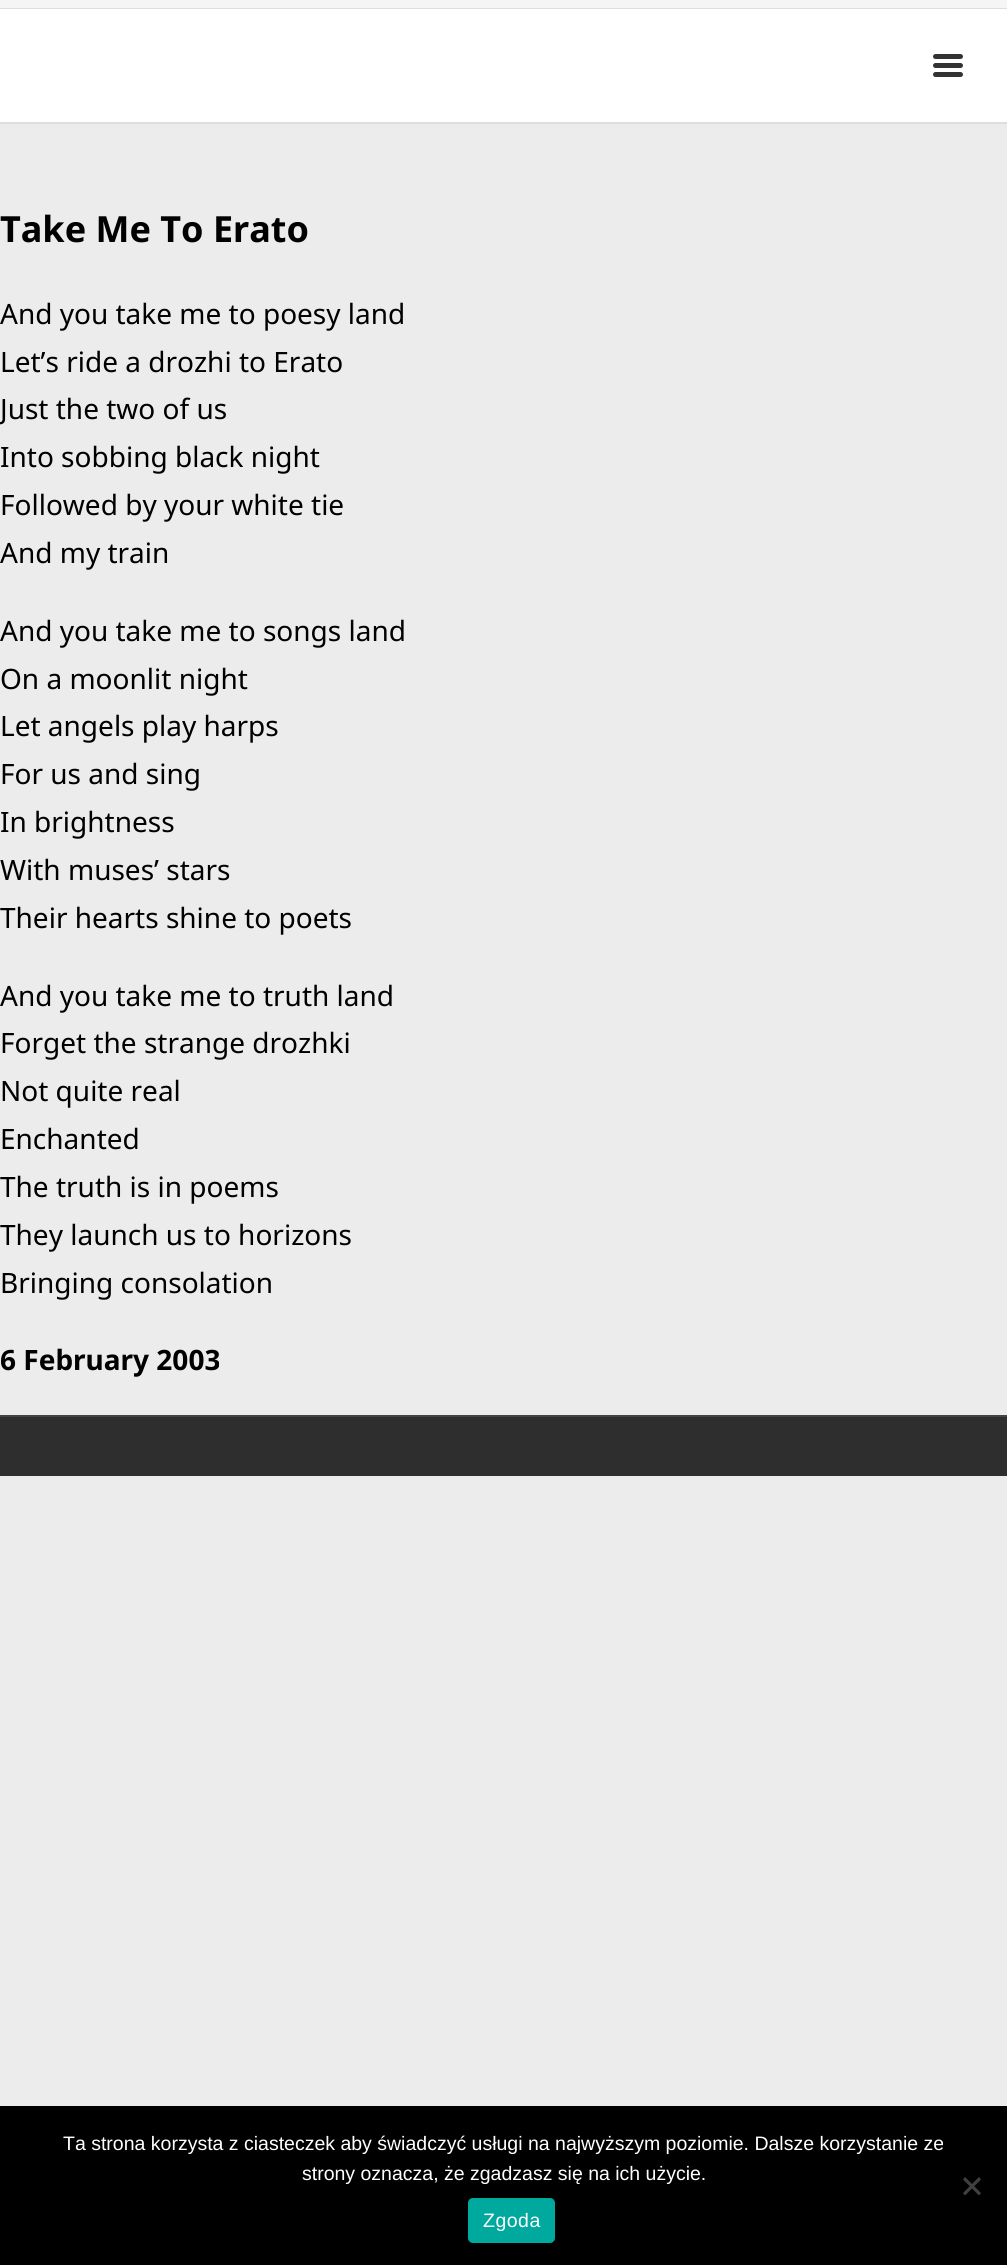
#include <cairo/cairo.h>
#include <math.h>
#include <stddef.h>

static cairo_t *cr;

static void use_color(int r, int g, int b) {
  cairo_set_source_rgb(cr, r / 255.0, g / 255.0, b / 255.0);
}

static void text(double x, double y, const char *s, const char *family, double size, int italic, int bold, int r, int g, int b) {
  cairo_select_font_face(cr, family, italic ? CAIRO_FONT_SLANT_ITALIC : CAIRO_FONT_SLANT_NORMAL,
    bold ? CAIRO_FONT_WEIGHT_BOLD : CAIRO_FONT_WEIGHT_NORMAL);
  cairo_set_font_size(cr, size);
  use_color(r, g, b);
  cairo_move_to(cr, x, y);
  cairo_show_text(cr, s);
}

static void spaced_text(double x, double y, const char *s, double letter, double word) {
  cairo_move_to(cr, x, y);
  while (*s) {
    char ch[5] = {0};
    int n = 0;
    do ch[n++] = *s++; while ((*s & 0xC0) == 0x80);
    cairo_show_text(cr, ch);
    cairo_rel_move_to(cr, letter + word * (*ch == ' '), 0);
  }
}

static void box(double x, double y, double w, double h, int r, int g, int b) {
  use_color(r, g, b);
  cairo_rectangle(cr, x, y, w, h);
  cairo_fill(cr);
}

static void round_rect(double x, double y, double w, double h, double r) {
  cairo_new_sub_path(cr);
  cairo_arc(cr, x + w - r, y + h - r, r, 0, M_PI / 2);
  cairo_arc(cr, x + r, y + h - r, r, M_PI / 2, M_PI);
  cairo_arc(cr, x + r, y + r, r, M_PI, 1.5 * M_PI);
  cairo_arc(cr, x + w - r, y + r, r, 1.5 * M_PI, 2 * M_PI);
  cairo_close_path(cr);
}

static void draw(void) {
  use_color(236, 236, 236);
  cairo_paint(cr);
  box(0, 122, 1007, 2, 221, 221, 221);
  box(0, 0, 1007, 8, 245, 245, 245);
  box(0, 8, 1007, 1, 221, 221, 221);
  box(0, 9, 1007, 113, 255, 255, 255);
  use_color(51, 51, 51);
  round_rect(933, 54, 30, 5, 2.5);
  cairo_fill(cr);
  round_rect(933, 63, 30, 5, 2.5);
  cairo_fill(cr);
  round_rect(933, 72, 30, 5, 2.5);
  cairo_fill(cr);
  box(0, 1417, 1007, 59, 46, 46, 46);
  box(0, 1415, 1007, 2, 68, 68, 68);
  box(0, 2106, 1007, 159, 0, 0, 0);
  use_color(64, 64, 64);
  cairo_new_path(cr);
  cairo_move_to(cr, 979, 2177);
  cairo_line_to(cr, 981, 2179.5);
  cairo_line_to(cr, 965, 2195.5);
  cairo_line_to(cr, 963, 2193);
  cairo_close_path(cr);
  cairo_fill(cr);
  cairo_new_path(cr);
  cairo_move_to(cr, 963, 2179.5);
  cairo_line_to(cr, 965, 2177);
  cairo_line_to(cr, 981, 2193);
  cairo_line_to(cr, 979, 2195.5);
  cairo_close_path(cr);
  cairo_fill(cr);
  use_color(0, 169, 157);
  round_rect(468, 2198, 87, 45, 5);
  cairo_fill(cr);
  text(0, 242, "Take Me To Erato", "Noto Sans", 36, 0, 1, 0, 0, 0);
  text(0, 324, "And you take me to poesy land", "Noto Sans", 28, 0, 0, 0, 0, 0);
  text(0, 372, "Let’s ride a drozhi to Erato", "Noto Sans", 28, 0, 0, 0, 0, 0);
  text(0, 419, "Just the two of us", "Noto Sans", 28, 0, 0, 0, 0, 0);
  text(0, 467, "Into sobbing black night", "Noto Sans", 28, 0, 0, 0, 0, 0);
  text(0, 515, "Followed by your white tie", "Noto Sans", 28, 0, 0, 0, 0, 0);
  text(0, 563, "And my train", "Noto Sans", 28, 0, 0, 0, 0, 0);
  text(0, 641, "And you take me to songs land", "Noto Sans", 28, 0, 0, 0, 0, 0);
  text(0, 689, "On a moonlit night", "Noto Sans", 28, 0, 0, 0, 0, 0);
  text(0, 736, "Let angels play harps", "Noto Sans", 28, 0, 0, 0, 0, 0);
  text(0, 784, "For us and sing", "Noto Sans", 28, 0, 0, 0, 0, 0);
  text(0, 832, "In brightness", "Noto Sans", 28, 0, 0, 0, 0, 0);
  text(0, 880, "With muses’ stars", "Noto Sans", 28, 0, 0, 0, 0, 0);
  text(0, 928, "Their hearts shine to poets", "Noto Sans", 28, 0, 0, 0, 0, 0);
  text(0, 1006, "And you take me to truth land", "Noto Sans", 28, 0, 0, 0, 0, 0);
  text(0, 1053, "Forget the strange drozhki", "Noto Sans", 28, 0, 0, 0, 0, 0);
  text(0, 1101, "Not quite real", "Noto Sans", 28, 0, 0, 0, 0, 0);
  text(0, 1149, "Enchanted", "Noto Sans", 28, 0, 0, 0, 0, 0);
  text(0, 1197, "The truth is in poems", "Noto Sans", 28, 0, 0, 0, 0, 0);
  text(0, 1245, "They launch us to horizons", "Noto Sans", 28, 0, 0, 0, 0, 0);
  text(0, 1293, "Bringing consolation", "Noto Sans", 28, 0, 0, 0, 0, 0);
  text(0, 1370, "6 February 2003", "Noto Sans", 28, 0, 1, 0, 0, 0);
  text(63, 2150, "Ta strona korzysta z ciasteczek aby świadczyć usługi na najwyższym poziomie. Dalsze korzystanie ze", "Liberation Sans", 19.5, 0, 0, 255, 255, 255);
  text(302, 2180, "strony oznacza, że zgadzasz się na ich użycie.", "Liberation Sans", 19.5, 0, 0, 255, 255, 255);
  spaced_text(483, 2227, "Zgoda", 0.5, 0);
}

int main(void) {
  cairo_surface_t *surface = cairo_image_surface_create(CAIRO_FORMAT_RGB24, 1007, 2265);
  cr = cairo_create(surface);
  cairo_font_options_t *options = cairo_font_options_create();
  cairo_font_options_set_hint_metrics(options, CAIRO_HINT_METRICS_OFF);
  cairo_font_options_set_hint_style(options, CAIRO_HINT_STYLE_NONE);
  cairo_set_font_options(cr, options);
  cairo_set_miter_limit(cr, 4);
  draw();
  cairo_surface_write_to_png(surface, "out.png");
  cairo_font_options_destroy(options);
  cairo_destroy(cr);
  cairo_surface_destroy(surface);
  return 0;
}
